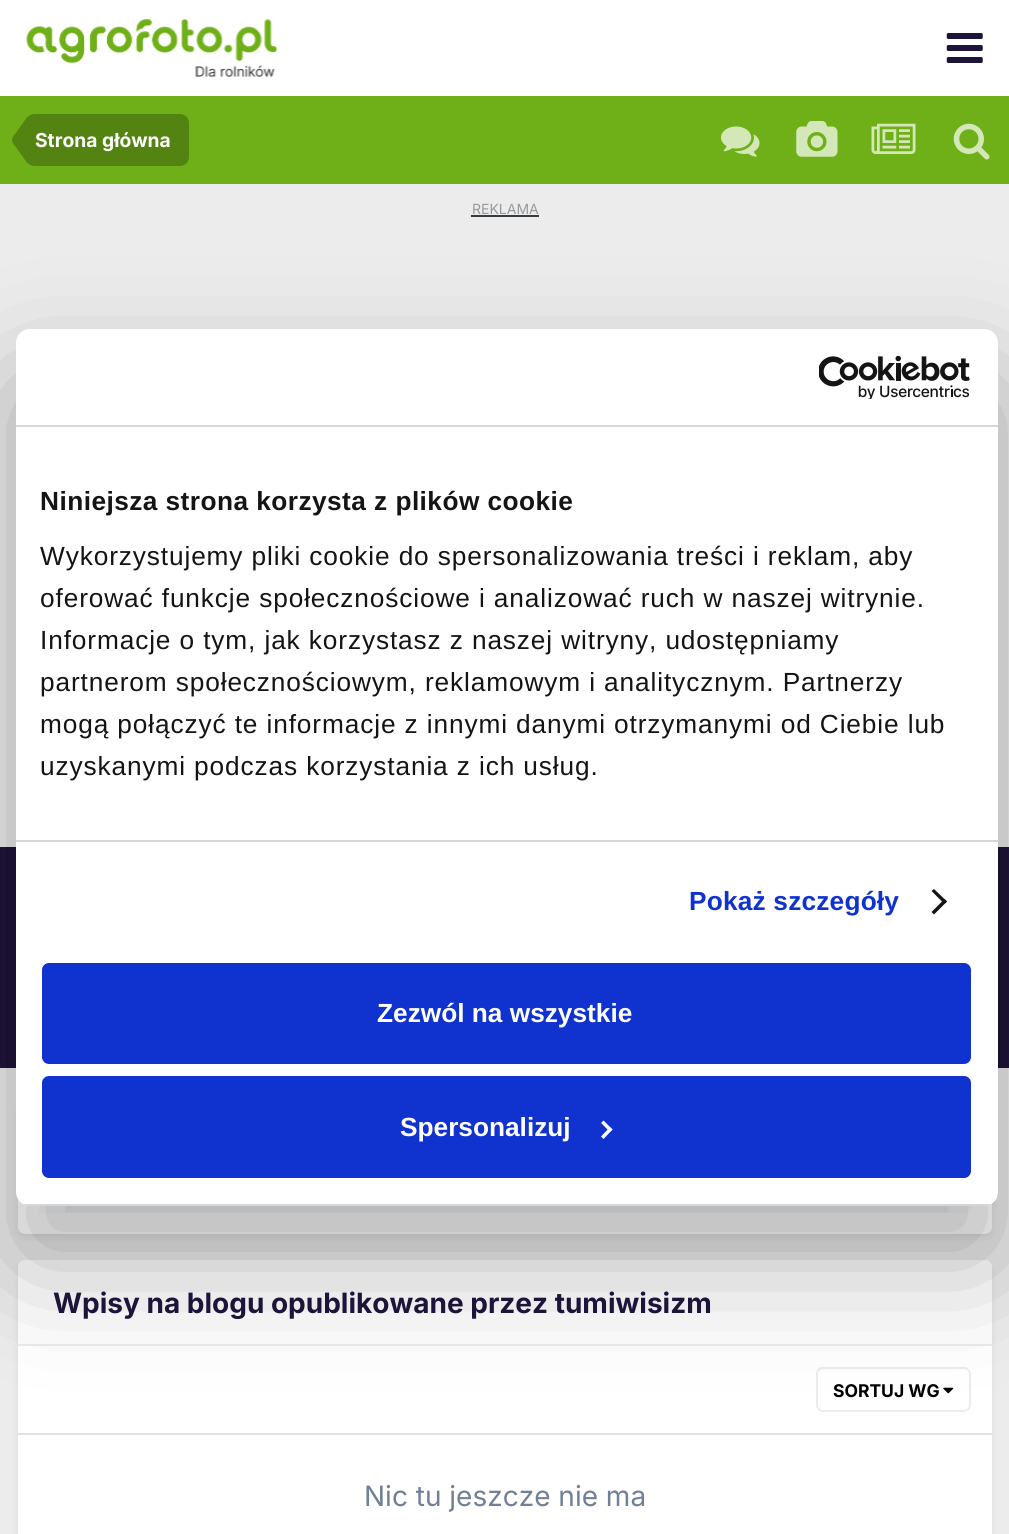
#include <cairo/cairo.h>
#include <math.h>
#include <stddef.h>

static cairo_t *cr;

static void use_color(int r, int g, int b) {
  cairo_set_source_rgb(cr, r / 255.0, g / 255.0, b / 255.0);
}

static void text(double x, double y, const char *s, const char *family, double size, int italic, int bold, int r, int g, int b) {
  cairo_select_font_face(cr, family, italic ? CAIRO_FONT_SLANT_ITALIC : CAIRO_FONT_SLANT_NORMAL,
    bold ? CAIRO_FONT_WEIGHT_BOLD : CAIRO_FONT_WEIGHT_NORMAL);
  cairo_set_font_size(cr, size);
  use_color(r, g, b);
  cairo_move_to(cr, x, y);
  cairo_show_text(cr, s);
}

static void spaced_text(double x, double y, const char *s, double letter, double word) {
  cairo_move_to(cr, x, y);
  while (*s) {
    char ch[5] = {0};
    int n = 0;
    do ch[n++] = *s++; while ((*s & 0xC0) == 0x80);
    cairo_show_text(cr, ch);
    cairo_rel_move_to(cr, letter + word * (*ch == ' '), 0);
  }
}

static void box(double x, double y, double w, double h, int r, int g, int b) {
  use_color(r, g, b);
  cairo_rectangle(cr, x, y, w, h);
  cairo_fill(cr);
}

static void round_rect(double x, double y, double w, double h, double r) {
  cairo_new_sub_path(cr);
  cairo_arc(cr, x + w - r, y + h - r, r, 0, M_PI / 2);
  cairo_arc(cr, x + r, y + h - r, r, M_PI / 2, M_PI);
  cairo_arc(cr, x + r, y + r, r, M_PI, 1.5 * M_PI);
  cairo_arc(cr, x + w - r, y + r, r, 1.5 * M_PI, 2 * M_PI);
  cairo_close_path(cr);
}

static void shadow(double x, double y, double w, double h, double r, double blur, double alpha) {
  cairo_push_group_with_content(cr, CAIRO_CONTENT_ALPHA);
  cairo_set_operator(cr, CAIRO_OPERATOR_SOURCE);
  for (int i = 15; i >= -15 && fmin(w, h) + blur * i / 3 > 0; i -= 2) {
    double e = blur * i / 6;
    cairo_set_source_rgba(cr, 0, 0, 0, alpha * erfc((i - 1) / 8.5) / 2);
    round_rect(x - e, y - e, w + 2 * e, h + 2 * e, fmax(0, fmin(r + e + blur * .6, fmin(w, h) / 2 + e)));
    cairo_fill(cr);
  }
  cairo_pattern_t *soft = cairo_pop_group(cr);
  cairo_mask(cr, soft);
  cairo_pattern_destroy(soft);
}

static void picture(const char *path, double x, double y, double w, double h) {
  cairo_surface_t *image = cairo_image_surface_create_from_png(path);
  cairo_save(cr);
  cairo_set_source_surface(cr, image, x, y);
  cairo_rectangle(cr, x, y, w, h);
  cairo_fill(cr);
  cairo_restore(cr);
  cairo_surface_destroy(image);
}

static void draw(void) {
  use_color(236, 236, 236);
  cairo_paint(cr);
  box(0, 0, 1009, 96, 255, 255, 255);
  picture("img_01.png", 26, 19, 251, 58);
  picture("img_02.png", 946, 33, 37, 30);
  box(0, 96, 1009, 88, 111, 176, 24);
  use_color(83, 132, 18);
  cairo_new_path(cr);
  cairo_move_to(cr, 35, 114);
  cairo_line_to(cr, 180, 114);
  cairo_curve_to(cr, 185, 114, 189, 118, 189, 123);
  cairo_line_to(cr, 189, 157);
  cairo_curve_to(cr, 189, 162, 185, 166, 180, 166);
  cairo_line_to(cr, 35, 166);
  cairo_close_path(cr);
  cairo_fill(cr);
  cairo_new_path(cr);
  cairo_move_to(cr, 35, 140);
  cairo_line_to(cr, 35, 166);
  cairo_curve_to(cr, 31, 166, 27.5, 164, 25, 160);
  cairo_line_to(cr, 12.5, 142.5);
  cairo_line_to(cr, 12, 140);
  cairo_close_path(cr);
  cairo_move_to(cr, 35, 140);
  cairo_line_to(cr, 12, 140);
  cairo_line_to(cr, 12.5, 137.5);
  cairo_line_to(cr, 25, 120);
  cairo_curve_to(cr, 27.5, 116, 31, 114, 35, 114);
  cairo_close_path(cr);
  cairo_fill(cr);
  picture("img_03.png", 721, 126, 39, 31);
  picture("img_04.png", 796, 121, 42, 36);
  picture("img_05.png", 871, 123, 45, 31);
  picture("img_06.png", 953, 123, 37, 37);
  box(471, 215, 68, 2, 53, 60, 65);
  box(0, 847, 1009, 221, 30, 20, 58);
  use_color(30, 20, 58);
  shadow(19, 1108, 972, 128, 5, 3.5, 0.1);
  use_color(255, 255, 255);
  round_rect(18, 1103, 974, 131, 7);
  cairo_fill(cr);
  box(39, 1206, 932, 7, 247, 250, 252);
  use_color(30, 20, 58);
  shadow(19, 1265, 972, 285, 5, 3.5, 0.1);
  use_color(255, 255, 255);
  round_rect(18, 1260, 974, 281, 7);
  cairo_fill(cr);
  cairo_new_path(cr);
  cairo_move_to(cr, 25, 1260);
  cairo_line_to(cr, 985, 1260);
  cairo_curve_to(cr, 989, 1260, 992, 1263, 992, 1267);
  cairo_line_to(cr, 992, 1346);
  cairo_line_to(cr, 18, 1346);
  cairo_line_to(cr, 18, 1267);
  cairo_curve_to(cr, 18, 1263, 21, 1260, 25, 1260);
  cairo_close_path(cr);
  cairo_fill(cr);
  box(18, 1344, 974, 2, 234, 236, 239);
  box(18, 1433, 974, 2, 225, 226, 227);
  picture("img_07.png", 943, 1387, 11, 7);
  round_rect(817, 1368, 153, 43, 6);
  use_color(235, 236, 236);
  cairo_stroke(cr);
  use_color(0, 0, 0);
  shadow(16, 385, 982, 877, 14, 59.5, 0.3);
  use_color(255, 255, 255);
  round_rect(16, 329, 982, 877, 14);
  cairo_fill(cr);
  box(16, 425, 982, 2, 214, 214, 214);
  picture("img_08.png", 819, 355, 151, 44);
  box(16, 840, 982, 2, 214, 214, 214);
  use_color(20, 20, 20);
  cairo_new_path(cr);
  cairo_move_to(cr, 934, 889);
  cairo_line_to(cr, 947, 901.5);
  cairo_line_to(cr, 944.5, 904);
  cairo_line_to(cr, 931.5, 891);
  cairo_close_path(cr);
  cairo_fill(cr);
  cairo_new_path(cr);
  cairo_move_to(cr, 944.5, 899);
  cairo_line_to(cr, 947, 901.5);
  cairo_line_to(cr, 934, 914.5);
  cairo_line_to(cr, 931.5, 912);
  cairo_close_path(cr);
  cairo_fill(cr);
  cairo_save(cr);
  round_rect(16, 329, 982, 877, 14);
  cairo_clip(cr);
  box(16, 1204, 982, 2, 214, 214, 214);
  cairo_restore(cr);
  use_color(16, 50, 207);
  round_rect(44, 965, 925, 97, 5);
  cairo_fill_preserve(cr);
  cairo_set_line_width(cr, 4);
  cairo_stroke(cr);
  round_rect(44, 1078, 925, 98, 5);
  cairo_fill_preserve(cr);
  cairo_stroke(cr);
  use_color(255, 255, 255);
  cairo_new_path(cr);
  cairo_move_to(cr, 603.5, 1120.5);
  cairo_line_to(cr, 612.5, 1129.5);
  cairo_line_to(cr, 610, 1132);
  cairo_line_to(cr, 601, 1123);
  cairo_close_path(cr);
  cairo_fill(cr);
  cairo_new_path(cr);
  cairo_move_to(cr, 610, 1127);
  cairo_line_to(cr, 612.5, 1129.5);
  cairo_line_to(cr, 603.5, 1139);
  cairo_line_to(cr, 601, 1136.5);
  cairo_close_path(cr);
  cairo_fill(cr);
  text(35, 147, "Strona główna", "Inter", 19.25, 0, 1, 255, 255, 255);
  text(472, 214, "REKLAMA", "Inter", 14, 0, 0, 153, 153, 153);
  text(53, 1313, "Wpisy na blogu opublikowane przez tumiwisizm", "Inter", 28, 0, 1, 30, 20, 58);
  text(833, 1397, "SORTUJ WG", "Inter", 17.5, 0, 1, 0, 0, 0);
  text(364, 1506, "Nic tu jeszcze nie ma", "Inter", 28, 0, 0, 113, 128, 150);
  cairo_select_font_face(cr, "Liberation Sans", CAIRO_FONT_SLANT_NORMAL, CAIRO_FONT_WEIGHT_BOLD);
  cairo_set_font_size(cr, 26.25);
  use_color(20, 20, 20);
  spaced_text(40, 510, "Niniejsza strona korzysta z plików cookie", 0.45, 0);
  cairo_select_font_face(cr, "Liberation Sans", CAIRO_FONT_SLANT_NORMAL, CAIRO_FONT_WEIGHT_NORMAL);
  spaced_text(40, 565, "Wykorzystujemy pliki cookie do spersonalizowania treści i reklam, aby", 0.88, 0);
  spaced_text(40, 607, "oferować funkcje społecznościowe i analizować ruch w naszej witrynie.", 0.88, 0);
  spaced_text(40, 649, "Informacje o tym, jak korzystasz z naszej witryny, udostępniamy", 0.88, 0);
  spaced_text(40, 691, "partnerom społecznościowym, reklamowym i analitycznym. Partnerzy", 0.88, 0);
  spaced_text(40, 733, "mogą połączyć te informacje z innymi danymi otrzymanymi od Ciebie lub", 0.88, 0);
  spaced_text(40, 775, "uzyskanymi podczas korzystania z ich usług.", 0.88, 0);
  cairo_select_font_face(cr, "Liberation Sans", CAIRO_FONT_SLANT_NORMAL, CAIRO_FONT_WEIGHT_BOLD);
  use_color(16, 50, 207);
  spaced_text(689, 910, "Pokaż szczegóły", 0.2, 0);
  text(377, 1022, "Zezwól na wszystkie", "Liberation Sans", 26.25, 0, 1, 255, 255, 255);
  text(400, 1136, "Spersonalizuj", "Liberation Sans", 26.25, 0, 1, 255, 255, 255);
}

int main(void) {
  cairo_surface_t *surface = cairo_image_surface_create(CAIRO_FORMAT_RGB24, 1009, 1534);
  cr = cairo_create(surface);
  cairo_font_options_t *options = cairo_font_options_create();
  cairo_font_options_set_hint_metrics(options, CAIRO_HINT_METRICS_OFF);
  cairo_font_options_set_hint_style(options, CAIRO_HINT_STYLE_NONE);
  cairo_set_font_options(cr, options);
  cairo_set_miter_limit(cr, 4);
  draw();
  cairo_surface_write_to_png(surface, "out.png");
  cairo_font_options_destroy(options);
  cairo_destroy(cr);
  cairo_surface_destroy(surface);
  return 0;
}
